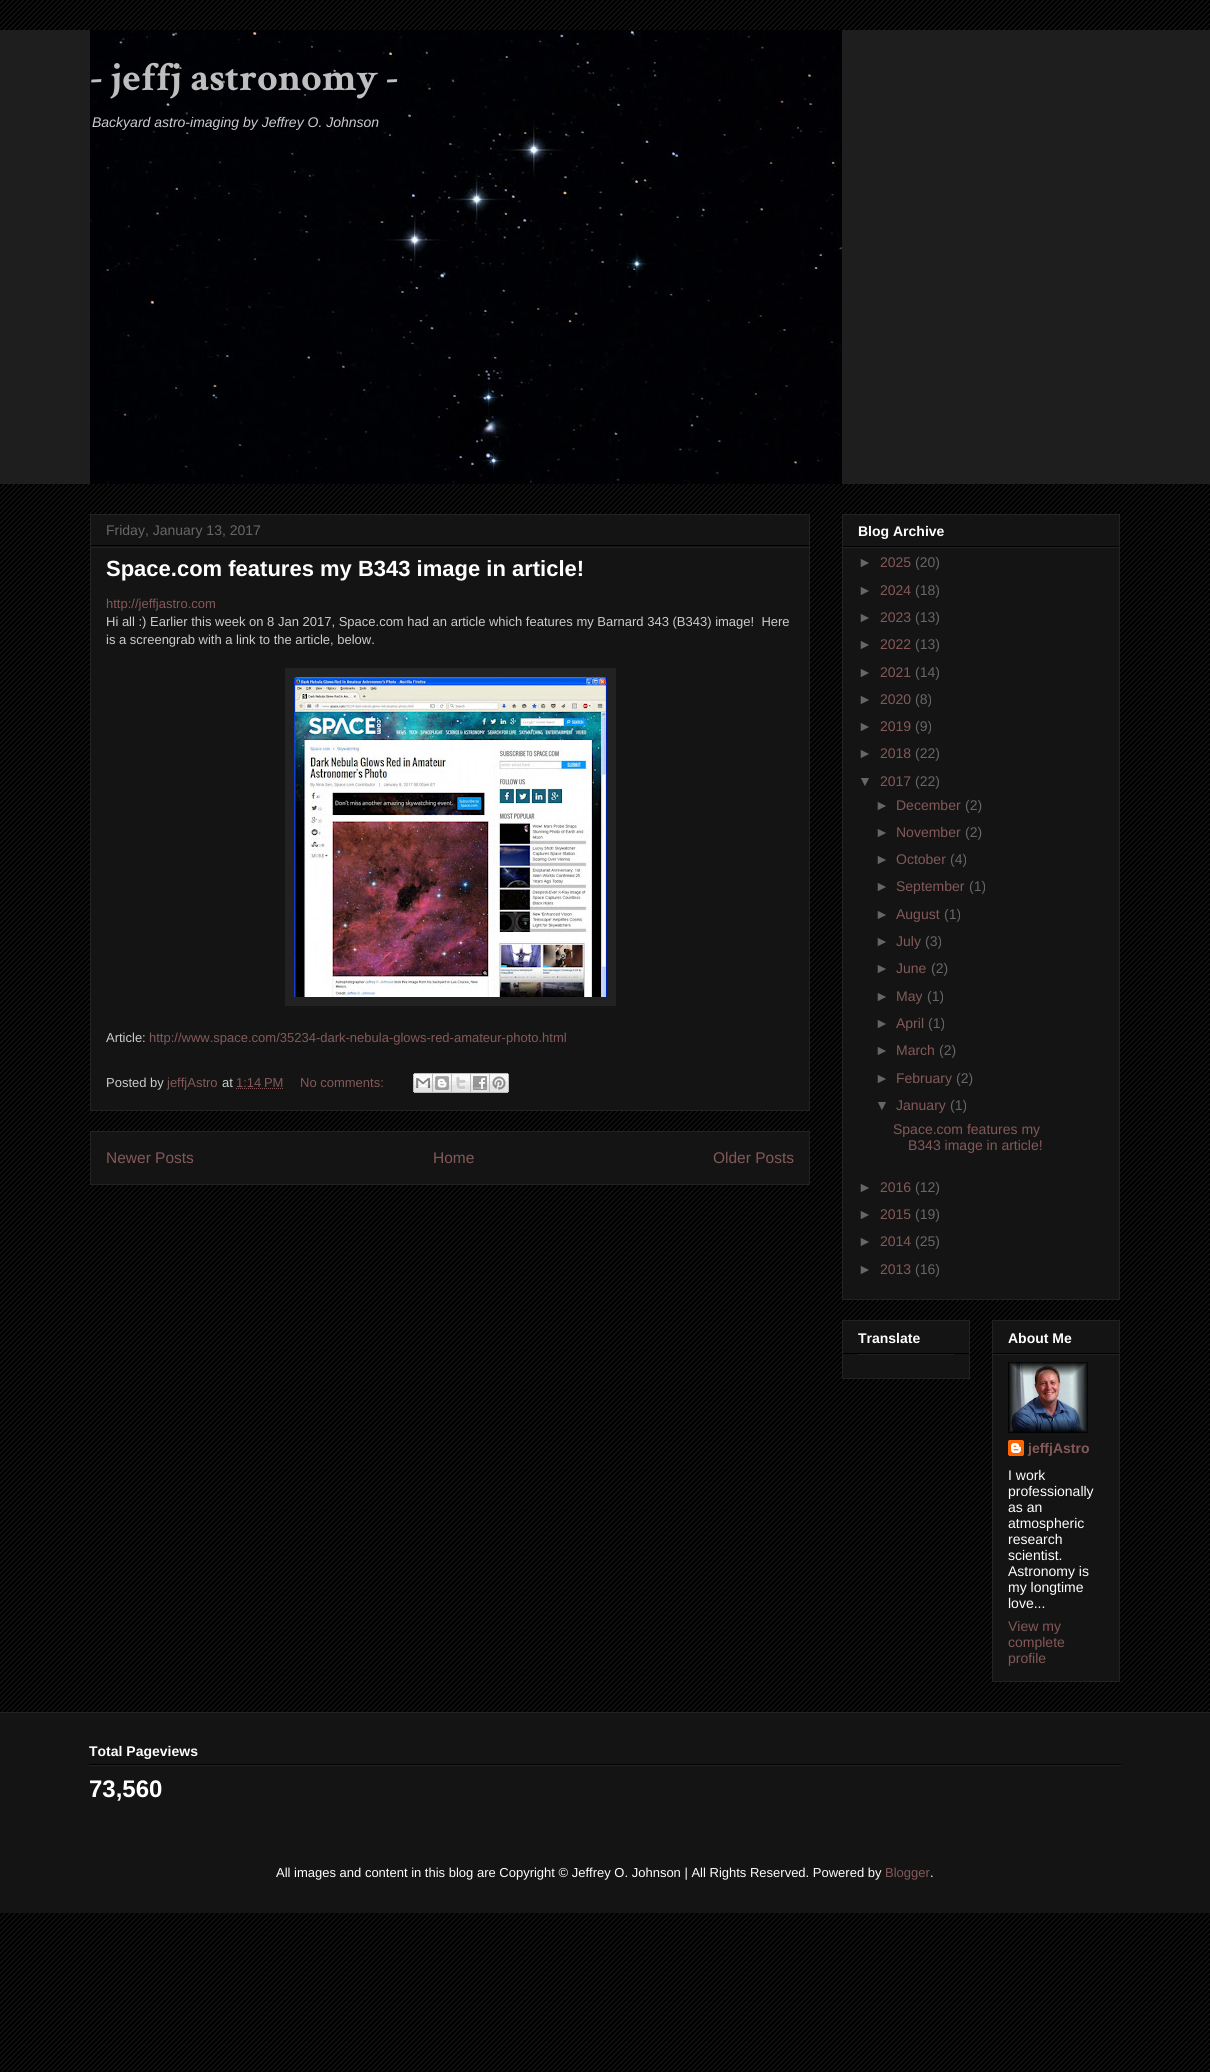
#include <cairo/cairo.h>
#include <math.h>
#include <stddef.h>

static cairo_t *cr;

static void use_color(int r, int g, int b) {
  cairo_set_source_rgb(cr, r / 255.0, g / 255.0, b / 255.0);
}

static void text(double x, double y, const char *s, const char *family, double size, int italic, int bold, int r, int g, int b) {
  cairo_select_font_face(cr, family, italic ? CAIRO_FONT_SLANT_ITALIC : CAIRO_FONT_SLANT_NORMAL,
    bold ? CAIRO_FONT_WEIGHT_BOLD : CAIRO_FONT_WEIGHT_NORMAL);
  cairo_set_font_size(cr, size);
  use_color(r, g, b);
  cairo_move_to(cr, x, y);
  cairo_show_text(cr, s);
}

static void box(double x, double y, double w, double h, int r, int g, int b) {
  use_color(r, g, b);
  cairo_rectangle(cr, x, y, w, h);
  cairo_fill(cr);
}

static void picture(const char *path, double x, double y, double w, double h) {
  cairo_surface_t *image = cairo_image_surface_create_from_png(path);
  cairo_save(cr);
  cairo_set_source_surface(cr, image, x, y);
  cairo_rectangle(cr, x, y, w, h);
  cairo_fill(cr);
  cairo_restore(cr);
  cairo_surface_destroy(image);
}

static void draw(void) {
  use_color(0, 0, 0);
  cairo_paint(cr);
  picture("img_01.png", 0, 0, 1210, 2072);
  box(0, 30, 1210, 454, 30, 30, 30);
  picture("img_02.png", 90, 30, 752, 454);
  use_color(20, 20, 20);
  cairo_rectangle(cr, 90.5, 514.5, 719, 596);
  cairo_fill_preserve(cr);
  use_color(34, 34, 34);
  cairo_set_line_width(cr, 1);
  cairo_stroke(cr);
  box(91, 545, 718, 1, 0, 0, 0);
  box(91, 547, 718, 1, 34, 34, 34);
  box(285, 668, 331, 338, 34, 34, 34);
  picture("img_03.png", 294, 677, 313, 320);
  cairo_new_path(cr);
  cairo_move_to(cr, 236, 1088.5);
  cairo_line_to(cr, 283.5, 1088.5);
  use_color(131, 88, 88);
  cairo_set_dash(cr, (double[]){1, 1}, 2, 0);
  cairo_stroke(cr);
  picture("img_04.png", 413, 1073, 20, 20);
  picture("img_05.png", 433, 1073, 19, 20);
  picture("img_06.png", 452, 1073, 19, 20);
  picture("img_07.png", 471, 1073, 19, 20);
  picture("img_08.png", 490, 1073, 19, 20);
  use_color(20, 20, 20);
  cairo_rectangle(cr, 90.5, 1131.5, 719, 53);
  cairo_fill_preserve(cr);
  use_color(34, 34, 34);
  cairo_set_dash(cr, NULL, 0, 0);
  cairo_stroke(cr);
  use_color(20, 20, 20);
  cairo_rectangle(cr, 842.5, 514.5, 277, 785);
  cairo_fill_preserve(cr);
  use_color(34, 34, 34);
  cairo_stroke(cr);
  box(843, 546, 276, 1, 0, 0, 0);
  box(843, 547, 276, 1, 34, 34, 34);
  use_color(20, 20, 20);
  cairo_rectangle(cr, 842.5, 1320.5, 127, 58);
  cairo_fill_preserve(cr);
  use_color(34, 34, 34);
  cairo_stroke(cr);
  box(843, 1353, 126, 1, 0, 0, 0);
  box(858, 1354, 96, 1, 34, 34, 34);
  use_color(20, 20, 20);
  cairo_rectangle(cr, 992.5, 1320.5, 127, 361);
  cairo_fill_preserve(cr);
  use_color(34, 34, 34);
  cairo_stroke(cr);
  box(993, 1353, 126, 1, 0, 0, 0);
  box(993, 1354, 126, 1, 34, 34, 34);
  picture("img_09.png", 1008, 1362, 80, 71);
  picture("img_10.png", 1008, 1440, 16, 16);
  box(0, 1713, 1210, 200, 20, 20, 20);
  box(0, 1712, 1210, 1, 34, 34, 34);
  box(89, 1764, 1032, 1, 0, 0, 0);
  box(89, 1765, 1032, 1, 34, 34, 34);
  text(90, 90, "- jeffj astronomy -", "Crimson Text", 40, 0, 1, 190, 190, 190);
  text(92, 127, "Backyard astro-imaging by Jeffrey O. Johnson", "Liberation Sans", 14, 1, 0, 204, 204, 204);
  text(106, 535, "Friday, January 13, 2017", "Liberation Sans", 14, 0, 0, 102, 102, 102);
  text(106, 576, "Space.com features my B343 image in article!", "Liberation Sans", 22, 0, 1, 255, 255, 255);
  text(106, 608, "http://jeffjastro.com", "Liberation Sans", 13, 0, 0, 131, 88, 88);
  text(106, 626, "Hi all :) Earlier this week on 8 Jan 2017, Space.com had an article which features my Barnard 343 (B343) image!  Here", "Liberation Sans", 13, 0, 0, 204, 204, 204);
  text(106, 644, "is a screengrab with a link to the article, below.", "Liberation Sans", 13, 0, 0, 204, 204, 204);
  text(106, 1042, "Article:", "Liberation Sans", 13, 0, 0, 204, 204, 204);
  text(149, 1042, "http://www.space.com/35234-dark-nebula-glows-red-amateur-photo.html", "Liberation Sans", 13, 0, 0, 131, 88, 88);
  text(106, 1087, "Posted by", "Liberation Sans", 13, 0, 0, 204, 204, 204);
  text(167, 1087, "jeffjAstro", "Liberation Sans", 13, 0, 0, 131, 88, 88);
  text(222, 1087, "at", "Liberation Sans", 13, 0, 0, 204, 204, 204);
  text(236, 1087, "1:14 PM", "Liberation Sans", 13, 0, 0, 131, 88, 88);
  text(300, 1087, "No comments:", "Liberation Sans", 13, 0, 0, 131, 88, 88);
  text(106, 1163, "Newer Posts", "Liberation Sans", 15.5, 0, 0, 131, 88, 88);
  text(433, 1163, "Home", "Liberation Sans", 15.5, 0, 0, 131, 88, 88);
  text(713, 1163, "Older Posts", "Liberation Sans", 15.5, 0, 0, 131, 88, 88);
  text(858, 536, "Blog Archive", "Liberation Sans", 14, 0, 1, 255, 255, 255);
  text(858, 567, "►", "Liberation Sans", 14, 0, 0, 102, 102, 102);
  text(880, 567, "2025", "Liberation Sans", 14, 0, 0, 131, 88, 88);
  text(915, 567, "(20)", "Liberation Sans", 14, 0, 0, 102, 102, 102);
  text(858, 595, "►", "Liberation Sans", 14, 0, 0, 102, 102, 102);
  text(880, 595, "2024", "Liberation Sans", 14, 0, 0, 131, 88, 88);
  text(915, 595, "(18)", "Liberation Sans", 14, 0, 0, 102, 102, 102);
  text(858, 622, "►", "Liberation Sans", 14, 0, 0, 102, 102, 102);
  text(880, 622, "2023", "Liberation Sans", 14, 0, 0, 131, 88, 88);
  text(915, 622, "(13)", "Liberation Sans", 14, 0, 0, 102, 102, 102);
  text(858, 649, "►", "Liberation Sans", 14, 0, 0, 102, 102, 102);
  text(880, 649, "2022", "Liberation Sans", 14, 0, 0, 131, 88, 88);
  text(915, 649, "(13)", "Liberation Sans", 14, 0, 0, 102, 102, 102);
  text(858, 677, "►", "Liberation Sans", 14, 0, 0, 102, 102, 102);
  text(880, 677, "2021", "Liberation Sans", 14, 0, 0, 131, 88, 88);
  text(915, 677, "(14)", "Liberation Sans", 14, 0, 0, 102, 102, 102);
  text(858, 704, "►", "Liberation Sans", 14, 0, 0, 102, 102, 102);
  text(880, 704, "2020", "Liberation Sans", 14, 0, 0, 131, 88, 88);
  text(915, 704, "(8)", "Liberation Sans", 14, 0, 0, 102, 102, 102);
  text(858, 731, "►", "Liberation Sans", 14, 0, 0, 102, 102, 102);
  text(880, 731, "2019", "Liberation Sans", 14, 0, 0, 131, 88, 88);
  text(915, 731, "(9)", "Liberation Sans", 14, 0, 0, 102, 102, 102);
  text(858, 758, "►", "Liberation Sans", 14, 0, 0, 102, 102, 102);
  text(880, 758, "2018", "Liberation Sans", 14, 0, 0, 131, 88, 88);
  text(915, 758, "(22)", "Liberation Sans", 14, 0, 0, 102, 102, 102);
  text(858, 786, "▼", "Liberation Sans", 14, 0, 0, 102, 102, 102);
  text(880, 786, "2017", "Liberation Sans", 14, 0, 0, 131, 88, 88);
  text(915, 786, "(22)", "Liberation Sans", 14, 0, 0, 102, 102, 102);
  text(875, 810, "►", "Liberation Sans", 14, 0, 0, 102, 102, 102);
  text(896, 810, "December", "Liberation Sans", 14, 0, 0, 131, 88, 88);
  text(965, 810, "(2)", "Liberation Sans", 14, 0, 0, 102, 102, 102);
  text(875, 837, "►", "Liberation Sans", 14, 0, 0, 102, 102, 102);
  text(896, 837, "November", "Liberation Sans", 14, 0, 0, 131, 88, 88);
  text(965, 837, "(2)", "Liberation Sans", 14, 0, 0, 102, 102, 102);
  text(875, 864, "►", "Liberation Sans", 14, 0, 0, 102, 102, 102);
  text(896, 864, "October", "Liberation Sans", 14, 0, 0, 131, 88, 88);
  text(950, 864, "(4)", "Liberation Sans", 14, 0, 0, 102, 102, 102);
  text(875, 891, "►", "Liberation Sans", 14, 0, 0, 102, 102, 102);
  text(896, 891, "September", "Liberation Sans", 14, 0, 0, 131, 88, 88);
  text(969, 891, "(1)", "Liberation Sans", 14, 0, 0, 102, 102, 102);
  text(875, 919, "►", "Liberation Sans", 14, 0, 0, 102, 102, 102);
  text(896, 919, "August", "Liberation Sans", 14, 0, 0, 131, 88, 88);
  text(944, 919, "(1)", "Liberation Sans", 14, 0, 0, 102, 102, 102);
  text(875, 946, "►", "Liberation Sans", 14, 0, 0, 102, 102, 102);
  text(896, 946, "July", "Liberation Sans", 14, 0, 0, 131, 88, 88);
  text(925, 946, "(3)", "Liberation Sans", 14, 0, 0, 102, 102, 102);
  text(875, 973, "►", "Liberation Sans", 14, 0, 0, 102, 102, 102);
  text(896, 973, "June", "Liberation Sans", 14, 0, 0, 131, 88, 88);
  text(931, 973, "(2)", "Liberation Sans", 14, 0, 0, 102, 102, 102);
  text(875, 1001, "►", "Liberation Sans", 14, 0, 0, 102, 102, 102);
  text(896, 1001, "May", "Liberation Sans", 14, 0, 0, 131, 88, 88);
  text(927, 1001, "(1)", "Liberation Sans", 14, 0, 0, 102, 102, 102);
  text(875, 1028, "►", "Liberation Sans", 14, 0, 0, 102, 102, 102);
  text(896, 1028, "April", "Liberation Sans", 14, 0, 0, 131, 88, 88);
  text(928, 1028, "(1)", "Liberation Sans", 14, 0, 0, 102, 102, 102);
  text(875, 1055, "►", "Liberation Sans", 14, 0, 0, 102, 102, 102);
  text(896, 1055, "March", "Liberation Sans", 14, 0, 0, 131, 88, 88);
  text(939, 1055, "(2)", "Liberation Sans", 14, 0, 0, 102, 102, 102);
  text(875, 1083, "►", "Liberation Sans", 14, 0, 0, 102, 102, 102);
  text(896, 1083, "February", "Liberation Sans", 14, 0, 0, 131, 88, 88);
  text(956, 1083, "(2)", "Liberation Sans", 14, 0, 0, 102, 102, 102);
  text(875, 1110, "▼", "Liberation Sans", 14, 0, 0, 102, 102, 102);
  text(896, 1110, "January", "Liberation Sans", 14, 0, 0, 131, 88, 88);
  text(950, 1110, "(1)", "Liberation Sans", 14, 0, 0, 102, 102, 102);
  text(893, 1134, "Space.com features my", "Liberation Sans", 14, 0, 0, 131, 88, 88);
  text(908, 1150, "B343 image in article!", "Liberation Sans", 14, 0, 0, 131, 88, 88);
  text(858, 1192, "►", "Liberation Sans", 14, 0, 0, 102, 102, 102);
  text(880, 1192, "2016", "Liberation Sans", 14, 0, 0, 131, 88, 88);
  text(915, 1192, "(12)", "Liberation Sans", 14, 0, 0, 102, 102, 102);
  text(858, 1219, "►", "Liberation Sans", 14, 0, 0, 102, 102, 102);
  text(880, 1219, "2015", "Liberation Sans", 14, 0, 0, 131, 88, 88);
  text(915, 1219, "(19)", "Liberation Sans", 14, 0, 0, 102, 102, 102);
  text(858, 1246, "►", "Liberation Sans", 14, 0, 0, 102, 102, 102);
  text(880, 1246, "2014", "Liberation Sans", 14, 0, 0, 131, 88, 88);
  text(915, 1246, "(25)", "Liberation Sans", 14, 0, 0, 102, 102, 102);
  text(858, 1274, "►", "Liberation Sans", 14, 0, 0, 102, 102, 102);
  text(880, 1274, "2013", "Liberation Sans", 14, 0, 0, 131, 88, 88);
  text(915, 1274, "(16)", "Liberation Sans", 14, 0, 0, 102, 102, 102);
  text(858, 1343, "Translate", "Liberation Sans", 14, 0, 1, 255, 255, 255);
  text(1008, 1343, "About Me", "Liberation Sans", 14, 0, 1, 255, 255, 255);
  text(1028, 1453, "jeffjAstro", "Liberation Sans", 14, 0, 1, 131, 88, 88);
  text(1008, 1480, "I work", "Liberation Sans", 14, 0, 0, 255, 255, 255);
  text(1008, 1496, "professionally", "Liberation Sans", 14, 0, 0, 255, 255, 255);
  text(1008, 1512, "as an", "Liberation Sans", 14, 0, 0, 255, 255, 255);
  text(1008, 1528, "atmospheric", "Liberation Sans", 14, 0, 0, 255, 255, 255);
  text(1008, 1544, "research", "Liberation Sans", 14, 0, 0, 255, 255, 255);
  text(1008, 1560, "scientist.", "Liberation Sans", 14, 0, 0, 255, 255, 255);
  text(1008, 1576, "Astronomy is", "Liberation Sans", 14, 0, 0, 255, 255, 255);
  text(1008, 1592, "my longtime", "Liberation Sans", 14, 0, 0, 255, 255, 255);
  text(1008, 1608, "love...", "Liberation Sans", 14, 0, 0, 255, 255, 255);
  text(1008, 1631, "View my", "Liberation Sans", 14, 0, 0, 131, 88, 88);
  text(1008, 1647, "complete", "Liberation Sans", 14, 0, 0, 131, 88, 88);
  text(1008, 1663, "profile", "Liberation Sans", 14, 0, 0, 131, 88, 88);
  text(89, 1756, "Total Pageviews", "Liberation Sans", 14, 0, 1, 255, 255, 255);
  text(89, 1797, "73,560", "Liberation Sans", 24, 0, 1, 255, 255, 255);
  text(276, 1877, "All images and content in this blog are Copyright © Jeffrey O. Johnson | All Rights Reserved. Powered by", "Liberation Sans", 13, 0, 0, 255, 255, 255);
  text(885, 1877, "Blogger", "Liberation Sans", 13, 0, 0, 131, 88, 88);
  text(930, 1877, ".", "Liberation Sans", 13, 0, 0, 255, 255, 255);
}

int main(void) {
  cairo_surface_t *surface = cairo_image_surface_create(CAIRO_FORMAT_RGB24, 1210, 2072);
  cr = cairo_create(surface);
  cairo_font_options_t *options = cairo_font_options_create();
  cairo_font_options_set_hint_metrics(options, CAIRO_HINT_METRICS_OFF);
  cairo_font_options_set_hint_style(options, CAIRO_HINT_STYLE_NONE);
  cairo_set_font_options(cr, options);
  cairo_set_miter_limit(cr, 4);
  draw();
  cairo_surface_write_to_png(surface, "out.png");
  cairo_font_options_destroy(options);
  cairo_destroy(cr);
  cairo_surface_destroy(surface);
  return 0;
}
